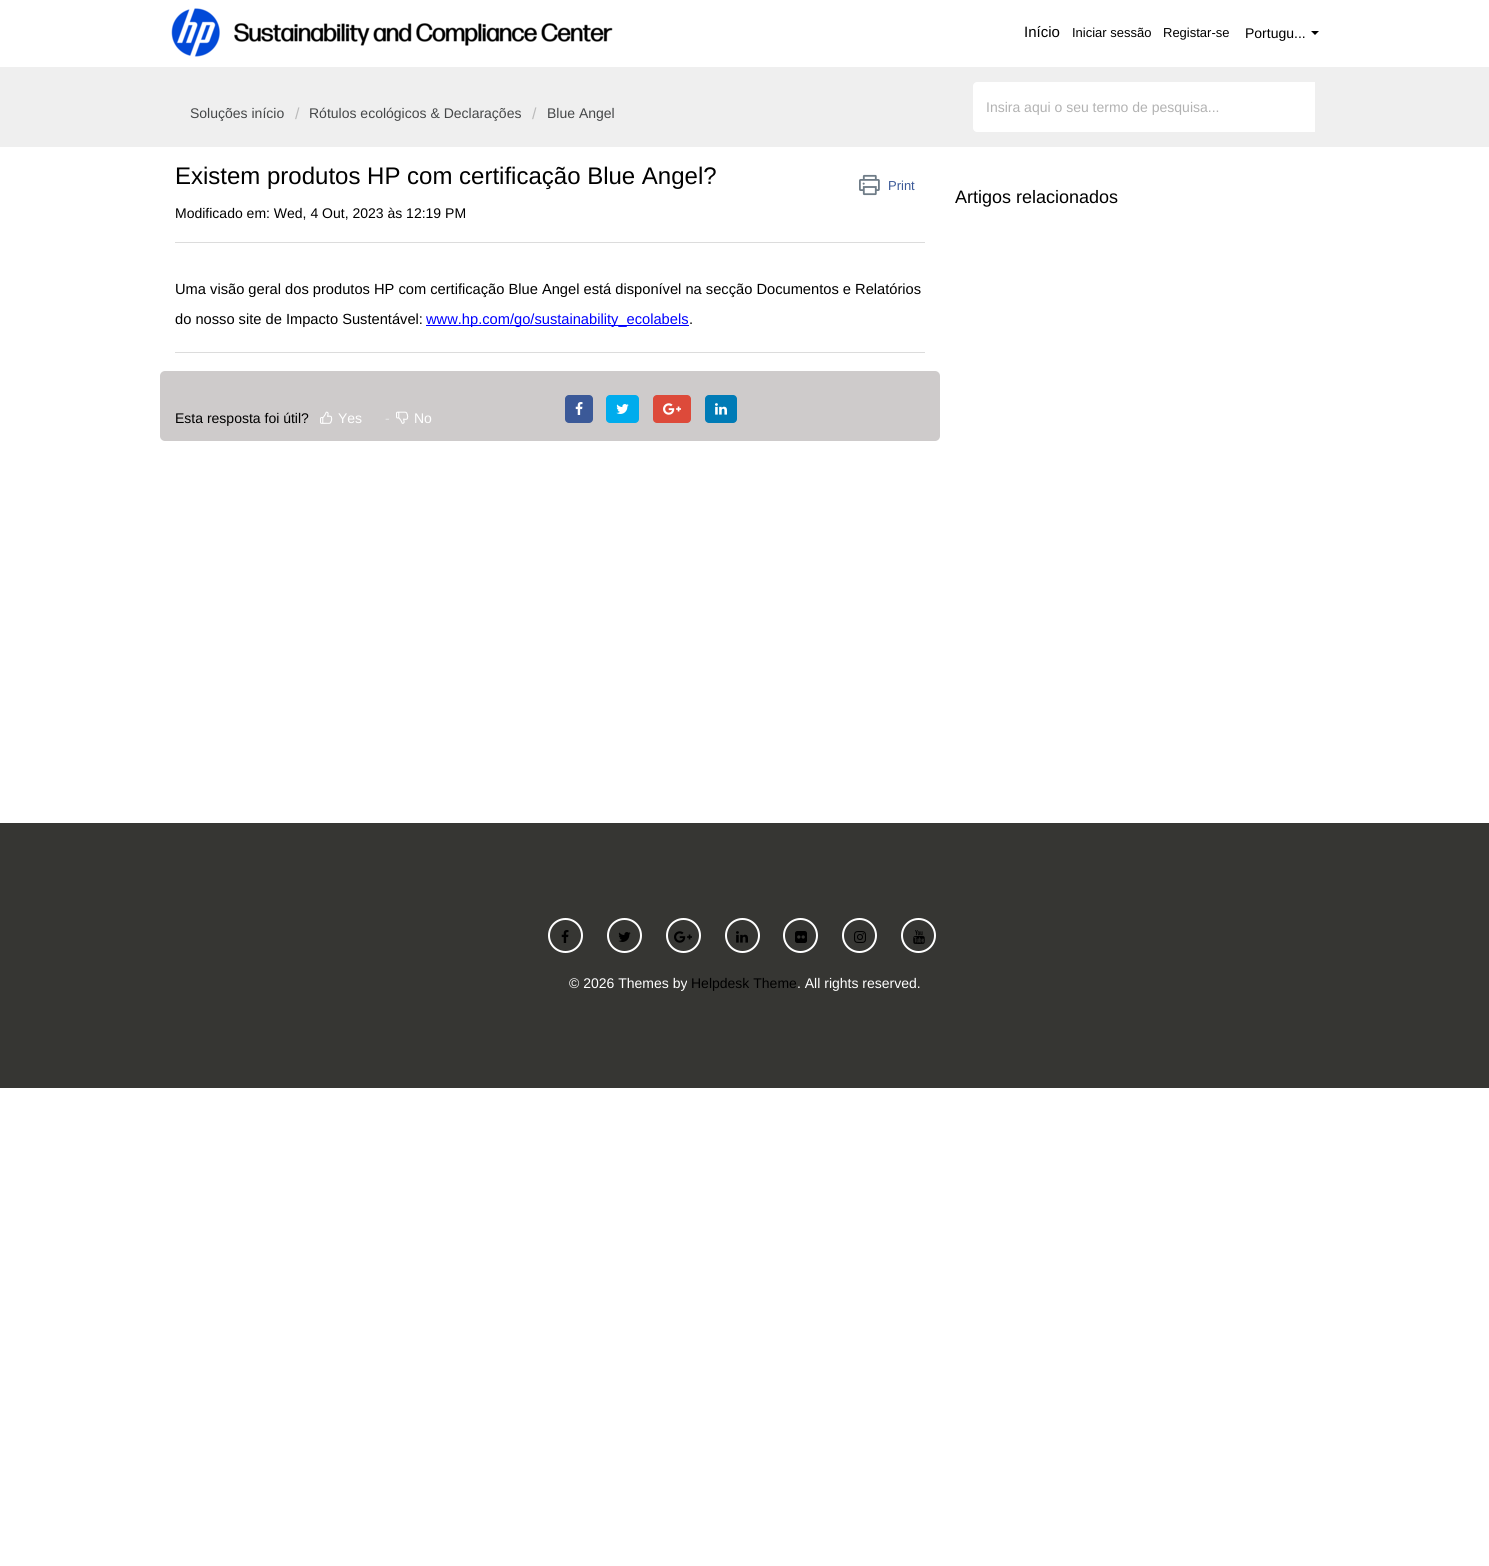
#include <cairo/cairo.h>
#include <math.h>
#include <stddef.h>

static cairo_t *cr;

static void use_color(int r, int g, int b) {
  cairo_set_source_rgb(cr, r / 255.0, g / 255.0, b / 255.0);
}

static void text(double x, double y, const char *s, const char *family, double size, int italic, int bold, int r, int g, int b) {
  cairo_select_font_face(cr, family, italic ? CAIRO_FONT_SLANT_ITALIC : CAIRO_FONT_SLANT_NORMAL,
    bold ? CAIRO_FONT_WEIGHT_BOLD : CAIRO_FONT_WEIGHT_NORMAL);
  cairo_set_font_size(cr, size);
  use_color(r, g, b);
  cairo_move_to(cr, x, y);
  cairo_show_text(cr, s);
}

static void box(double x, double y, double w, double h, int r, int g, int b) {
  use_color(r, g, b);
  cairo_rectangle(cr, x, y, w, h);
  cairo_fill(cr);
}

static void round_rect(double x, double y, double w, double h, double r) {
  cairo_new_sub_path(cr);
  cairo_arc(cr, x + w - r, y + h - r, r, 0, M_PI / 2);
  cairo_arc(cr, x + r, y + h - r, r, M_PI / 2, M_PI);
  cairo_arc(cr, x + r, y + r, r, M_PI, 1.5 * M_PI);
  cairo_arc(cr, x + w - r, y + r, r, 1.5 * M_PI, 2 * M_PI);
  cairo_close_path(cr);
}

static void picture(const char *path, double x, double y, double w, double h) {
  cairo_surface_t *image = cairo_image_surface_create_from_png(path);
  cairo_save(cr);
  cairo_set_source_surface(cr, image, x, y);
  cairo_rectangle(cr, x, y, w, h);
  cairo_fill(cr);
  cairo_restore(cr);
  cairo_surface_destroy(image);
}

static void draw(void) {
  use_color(255, 255, 255);
  cairo_paint(cr);
  picture("img_01.png", 171, 8, 442, 49);
  use_color(0, 0, 0);
  cairo_new_path(cr);
  cairo_move_to(cr, 1311, 31);
  cairo_line_to(cr, 1319, 31);
  cairo_line_to(cr, 1315, 35);
  cairo_close_path(cr);
  cairo_fill(cr);
  box(0, 67, 1489, 80, 239, 239, 239);
  use_color(255, 255, 255);
  cairo_new_path(cr);
  cairo_move_to(cr, 977, 82);
  cairo_line_to(cr, 1315, 82);
  cairo_line_to(cr, 1315, 132);
  cairo_line_to(cr, 977, 132);
  cairo_curve_to(cr, 975, 132, 973, 130, 973, 128);
  cairo_line_to(cr, 973, 86);
  cairo_curve_to(cr, 973, 84, 975, 82, 977, 82);
  cairo_close_path(cr);
  cairo_fill(cr);
  picture("img_02.png", 859, 174, 21, 22);
  box(175, 242, 750, 1, 220, 220, 220);
  box(426, 325, 88, 1, 0, 0, 255);
  box(514, 325, 175, 1, 0, 0, 255);
  box(175, 352, 750, 1, 220, 220, 220);
  use_color(206, 203, 203);
  round_rect(160, 371, 780, 70, 5);
  cairo_fill(cr);
  picture("img_03.png", 320, 411, 13, 13);
  picture("img_04.png", 396, 411, 13, 13);
  use_color(59, 89, 152);
  round_rect(565, 395, 28, 28, 4);
  cairo_fill(cr);
  picture("img_05.png", 575, 402, 8, 13);
  use_color(0, 172, 237);
  round_rect(606, 395, 33, 28, 4);
  cairo_fill(cr);
  picture("img_06.png", 616, 404, 13, 10);
  use_color(221, 74, 58);
  round_rect(653, 395, 38, 28, 4);
  cairo_fill(cr);
  picture("img_07.png", 663, 403, 18, 12);
  use_color(0, 123, 182);
  round_rect(705, 395, 32, 28, 4);
  cairo_fill(cr);
  picture("img_08.png", 715, 403, 12, 12);
  box(0, 823, 1489, 265, 54, 54, 51);
  cairo_arc(cr, 565.5, 935.5, 16.5, 0, 2 * M_PI);
  use_color(255, 255, 255);
  cairo_stroke(cr);
  picture("img_09.png", 561, 930, 8, 13);
  cairo_arc(cr, 624.5, 935.5, 16.5, 0, 2 * M_PI);
  cairo_stroke(cr);
  picture("img_10.png", 618, 932, 13, 10);
  cairo_arc(cr, 683.5, 935.5, 16.5, 0, 2 * M_PI);
  cairo_stroke(cr);
  picture("img_11.png", 674, 931, 18, 12);
  cairo_arc(cr, 742.5, 935.5, 16.5, 0, 2 * M_PI);
  cairo_stroke(cr);
  picture("img_12.png", 736, 931, 12, 12);
  cairo_arc(cr, 800.5, 935.5, 16.5, 0, 2 * M_PI);
  cairo_stroke(cr);
  picture("img_13.png", 795, 931, 12, 12);
  cairo_arc(cr, 859.5, 935.5, 16.5, 0, 2 * M_PI);
  cairo_stroke(cr);
  picture("img_14.png", 854, 931, 12, 12);
  cairo_arc(cr, 918.5, 935.5, 16.5, 0, 2 * M_PI);
  cairo_stroke(cr);
  picture("img_15.png", 913, 930, 12, 14);
  text(1024, 37, "Início", "Liberation Sans", 15, 0, 0, 0, 0, 0);
  text(1072, 37, "Iniciar sessão", "Liberation Sans", 13, 0, 0, 0, 0, 0);
  text(1163, 37, "Registar-se", "Liberation Sans", 13, 0, 0, 0, 0, 0);
  text(1245, 38, "Portugu...", "Liberation Sans", 14, 0, 0, 0, 0, 0);
  text(986, 112, "Insira aqui o seu termo de pesquisa...", "Liberation Sans", 14, 0, 0, 178, 178, 178);
  text(190, 118, "Soluções início", "Liberation Sans", 14, 0, 0, 69, 71, 72);
  text(295, 119, "/", "Liberation Sans", 16, 0, 0, 187, 187, 187);
  text(309, 118, "Rótulos ecológicos & Declarações", "Liberation Sans", 14, 0, 0, 69, 71, 72);
  text(532, 119, "/", "Liberation Sans", 16, 0, 0, 187, 187, 187);
  text(547, 118, "Blue Angel", "Liberation Sans", 14, 0, 0, 69, 71, 72);
  text(175, 184, "Existem produtos HP com certificação Blue Angel?", "Liberation Sans", 24, 0, 0, 0, 0, 0);
  text(888, 190, "Print", "Liberation Sans", 13, 0, 0, 59, 89, 152);
  text(175, 218, "Modificado em: Wed, 4 Out, 2023 às 12:19 PM", "Liberation Sans", 14, 0, 0, 0, 0, 0);
  text(175, 294, "Uma visão geral dos produtos HP com certificação Blue Angel está disponível na secção Documentos e Relatórios", "Liberation Sans", 14.67, 0, 0, 0, 0, 0);
  text(175, 324, "do nosso site de Impacto Sustentável:", "Liberation Sans", 14.67, 0, 0, 0, 0, 0);
  text(426, 324, "www.hp.com/", "Liberation Sans", 14.67, 0, 0, 0, 0, 255);
  text(514, 324, "go/sustainability_ecolabels", "Liberation Sans", 14.67, 0, 0, 0, 0, 255);
  text(689, 324, ".", "Liberation Sans", 14.67, 0, 0, 0, 0, 0);
  text(175, 423, "Esta resposta foi útil?", "Liberation Sans", 14, 0, 0, 0, 0, 0);
  text(338, 423, "Yes", "Liberation Sans", 14, 0, 0, 255, 255, 255);
  text(385, 423, "-", "Liberation Sans", 14, 0, 0, 229, 229, 229);
  text(414, 423, "No", "Liberation Sans", 14, 0, 0, 255, 255, 255);
  text(955, 203, "Artigos relacionados", "Liberation Sans", 18, 0, 0, 0, 0, 0);
  text(569, 988, "© 2026 Themes by", "Liberation Sans", 14, 0, 0, 255, 255, 255);
  text(691, 988, "Helpdesk Theme", "Liberation Sans", 14, 0, 0, 0, 0, 0);
  text(797, 988, ". All rights reserved.", "Liberation Sans", 14, 0, 0, 255, 255, 255);
}

int main(void) {
  cairo_surface_t *surface = cairo_image_surface_create(CAIRO_FORMAT_RGB24, 1489, 1566);
  cr = cairo_create(surface);
  cairo_font_options_t *options = cairo_font_options_create();
  cairo_font_options_set_hint_metrics(options, CAIRO_HINT_METRICS_OFF);
  cairo_font_options_set_hint_style(options, CAIRO_HINT_STYLE_NONE);
  cairo_set_font_options(cr, options);
  cairo_set_miter_limit(cr, 4);
  draw();
  cairo_surface_write_to_png(surface, "out.png");
  cairo_font_options_destroy(options);
  cairo_destroy(cr);
  cairo_surface_destroy(surface);
  return 0;
}
